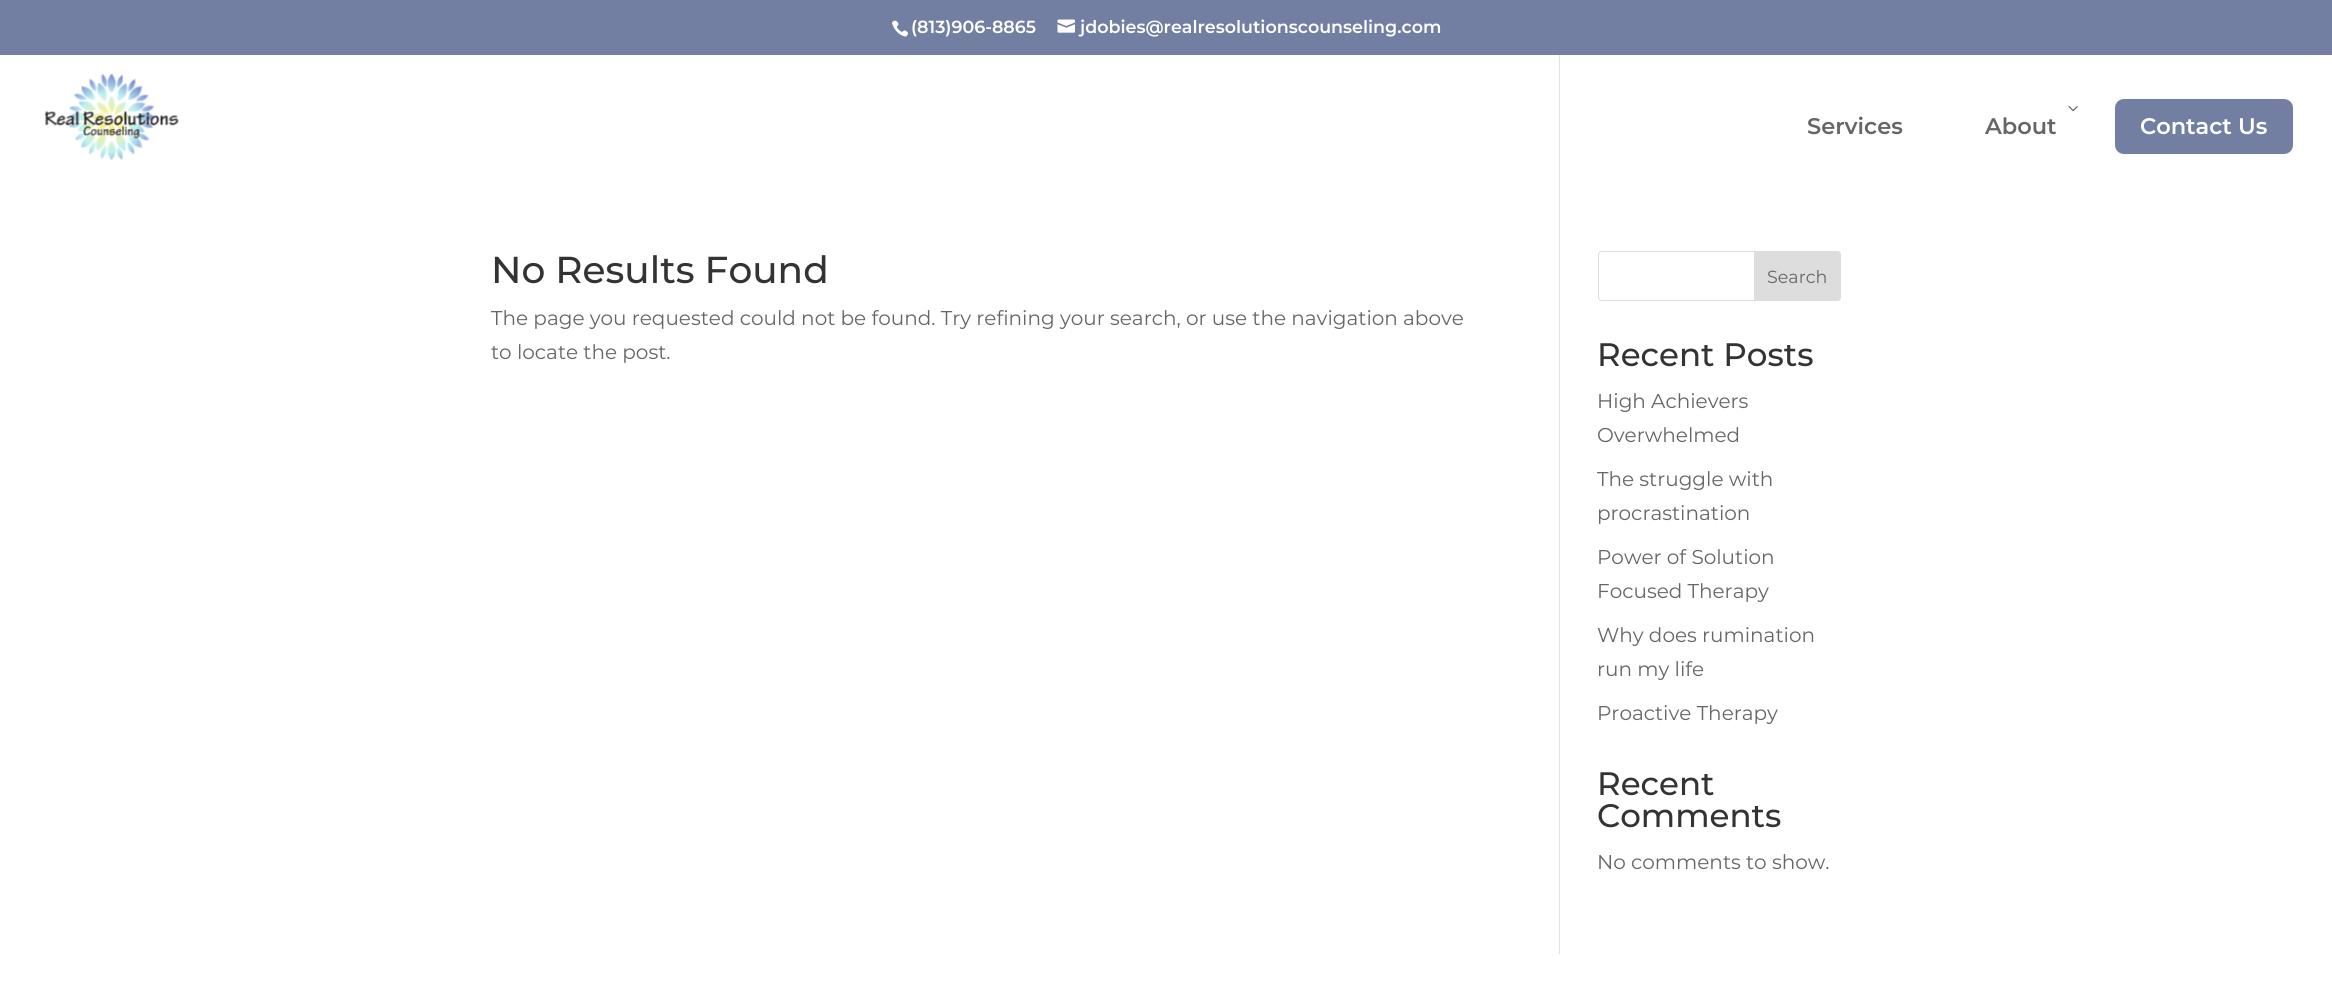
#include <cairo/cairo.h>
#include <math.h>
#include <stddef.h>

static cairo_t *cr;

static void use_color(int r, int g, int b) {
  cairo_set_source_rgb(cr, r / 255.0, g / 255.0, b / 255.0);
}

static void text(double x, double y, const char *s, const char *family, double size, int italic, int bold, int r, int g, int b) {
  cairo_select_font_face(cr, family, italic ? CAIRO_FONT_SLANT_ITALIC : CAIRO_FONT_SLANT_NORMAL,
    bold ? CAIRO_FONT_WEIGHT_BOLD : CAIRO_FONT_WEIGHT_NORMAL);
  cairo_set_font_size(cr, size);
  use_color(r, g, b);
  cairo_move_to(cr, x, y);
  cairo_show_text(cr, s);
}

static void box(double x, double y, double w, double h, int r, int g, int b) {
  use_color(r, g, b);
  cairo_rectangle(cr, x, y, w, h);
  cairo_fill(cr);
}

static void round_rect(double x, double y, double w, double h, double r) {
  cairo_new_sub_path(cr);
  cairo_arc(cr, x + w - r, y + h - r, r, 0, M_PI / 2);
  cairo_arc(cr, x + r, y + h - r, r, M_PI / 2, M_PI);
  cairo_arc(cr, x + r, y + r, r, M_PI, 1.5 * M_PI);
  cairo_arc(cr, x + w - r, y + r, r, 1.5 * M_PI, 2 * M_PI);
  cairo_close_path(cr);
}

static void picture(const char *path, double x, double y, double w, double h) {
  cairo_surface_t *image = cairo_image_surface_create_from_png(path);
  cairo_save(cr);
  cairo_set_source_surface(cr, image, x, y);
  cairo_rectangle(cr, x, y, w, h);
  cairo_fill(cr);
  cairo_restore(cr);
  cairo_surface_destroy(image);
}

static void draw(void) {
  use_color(255, 255, 255);
  cairo_paint(cr);
  box(0, 0, 2332, 55, 114, 127, 163);
  picture("img_01.png", 892, 20, 16, 17);
  picture("img_02.png", 1057, 19, 18, 14);
  picture("img_03.png", 44, 73, 135, 88);
  picture("img_04.png", 2068, 106, 10, 6);
  round_rect(2115, 99, 178, 55, 9);
  cairo_fill(cr);
  box(1559, 55, 1, 899, 226, 226, 226);
  round_rect(1598.5, 251.5, 242, 49, 3.5);
  use_color(221, 221, 221);
  cairo_set_line_width(cr, 1);
  cairo_stroke(cr);
  cairo_new_path(cr);
  cairo_move_to(cr, 1754.5, 251.5);
  cairo_line_to(cr, 1837, 251.5);
  cairo_curve_to(cr, 1839, 251.5, 1840.5, 253, 1840.5, 255);
  cairo_line_to(cr, 1840.5, 297);
  cairo_curve_to(cr, 1840.5, 299, 1839, 300.5, 1837, 300.5);
  cairo_line_to(cr, 1754.5, 300.5);
  cairo_close_path(cr);
  cairo_fill_preserve(cr);
  cairo_stroke(cr);
  text(911, 33, "(813)906-8865", "Montserrat SemiBold", 17.5, 0, 0, 255, 255, 255);
  text(1080, 33, "jdobies@realresolutionscounseling.com", "Montserrat SemiBold", 17.5, 0, 0, 255, 255, 255);
  text(1807, 134, "Services", "Montserrat SemiBold", 22.5, 0, 0, 102, 102, 102);
  text(1985, 134, "About", "Montserrat SemiBold", 22.5, 0, 0, 102, 102, 102);
  text(2140, 134, "Contact Us", "Montserrat SemiBold", 22.5, 0, 0, 255, 255, 255);
  text(491, 283, "No Results Found", "Montserrat Medium", 37.5, 0, 0, 51, 51, 51);
  text(491, 325, "The page you requested could not be found. Try refining your search, or use the navigation above", "Montserrat", 20, 0, 0, 102, 102, 102);
  text(491, 359, "to locate the post.", "Montserrat", 20, 0, 0, 102, 102, 102);
  text(1767, 283, "Search", "Montserrat", 17.5, 0, 0, 102, 102, 102);
  text(1597, 366, "Recent Posts", "Montserrat Medium", 32.5, 0, 0, 51, 51, 51);
  text(1597, 408, "High Achievers", "Montserrat", 20, 0, 0, 102, 102, 102);
  text(1597, 442, "Overwhelmed", "Montserrat", 20, 0, 0, 102, 102, 102);
  text(1597, 486, "The struggle with", "Montserrat", 20, 0, 0, 102, 102, 102);
  text(1597, 520, "procrastination", "Montserrat", 20, 0, 0, 102, 102, 102);
  text(1597, 564, "Power of Solution", "Montserrat", 20, 0, 0, 102, 102, 102);
  text(1597, 598, "Focused Therapy", "Montserrat", 20, 0, 0, 102, 102, 102);
  text(1597, 642, "Why does rumination", "Montserrat", 20, 0, 0, 102, 102, 102);
  text(1597, 676, "run my life", "Montserrat", 20, 0, 0, 102, 102, 102);
  text(1597, 720, "Proactive Therapy", "Montserrat", 20, 0, 0, 102, 102, 102);
  text(1597, 795, "Recent", "Montserrat Medium", 32.5, 0, 0, 51, 51, 51);
  text(1597, 827, "Comments", "Montserrat Medium", 32.5, 0, 0, 51, 51, 51);
  text(1597, 869, "No comments to show.", "Montserrat", 20, 0, 0, 102, 102, 102);
}

int main(void) {
  cairo_surface_t *surface = cairo_image_surface_create(CAIRO_FORMAT_RGB24, 2332, 998);
  cr = cairo_create(surface);
  cairo_font_options_t *options = cairo_font_options_create();
  cairo_font_options_set_hint_metrics(options, CAIRO_HINT_METRICS_OFF);
  cairo_font_options_set_hint_style(options, CAIRO_HINT_STYLE_NONE);
  cairo_set_font_options(cr, options);
  cairo_set_miter_limit(cr, 4);
  draw();
  cairo_surface_write_to_png(surface, "out.png");
  cairo_font_options_destroy(options);
  cairo_destroy(cr);
  cairo_surface_destroy(surface);
  return 0;
}
